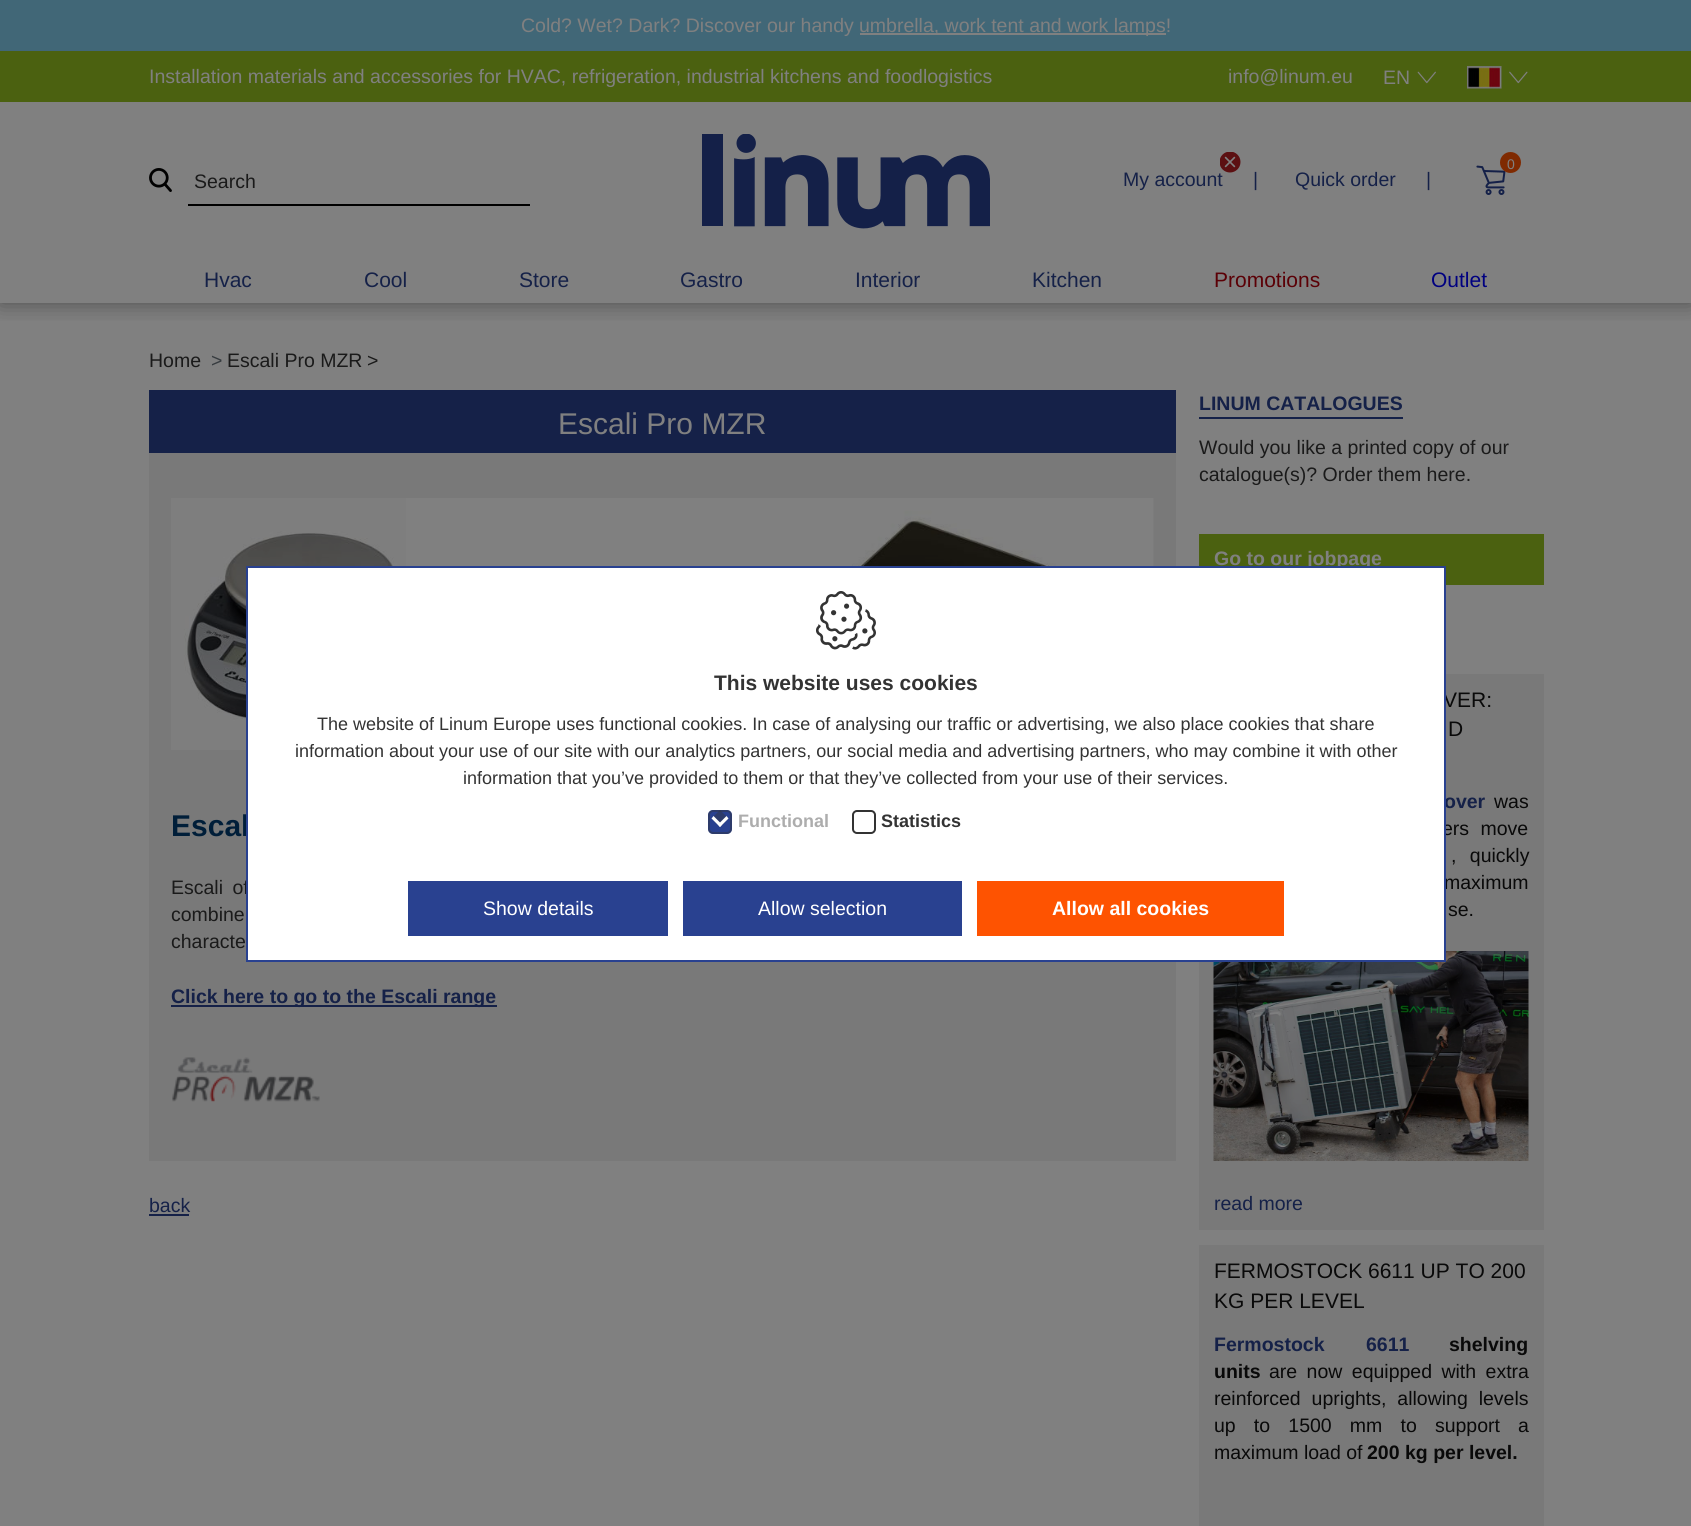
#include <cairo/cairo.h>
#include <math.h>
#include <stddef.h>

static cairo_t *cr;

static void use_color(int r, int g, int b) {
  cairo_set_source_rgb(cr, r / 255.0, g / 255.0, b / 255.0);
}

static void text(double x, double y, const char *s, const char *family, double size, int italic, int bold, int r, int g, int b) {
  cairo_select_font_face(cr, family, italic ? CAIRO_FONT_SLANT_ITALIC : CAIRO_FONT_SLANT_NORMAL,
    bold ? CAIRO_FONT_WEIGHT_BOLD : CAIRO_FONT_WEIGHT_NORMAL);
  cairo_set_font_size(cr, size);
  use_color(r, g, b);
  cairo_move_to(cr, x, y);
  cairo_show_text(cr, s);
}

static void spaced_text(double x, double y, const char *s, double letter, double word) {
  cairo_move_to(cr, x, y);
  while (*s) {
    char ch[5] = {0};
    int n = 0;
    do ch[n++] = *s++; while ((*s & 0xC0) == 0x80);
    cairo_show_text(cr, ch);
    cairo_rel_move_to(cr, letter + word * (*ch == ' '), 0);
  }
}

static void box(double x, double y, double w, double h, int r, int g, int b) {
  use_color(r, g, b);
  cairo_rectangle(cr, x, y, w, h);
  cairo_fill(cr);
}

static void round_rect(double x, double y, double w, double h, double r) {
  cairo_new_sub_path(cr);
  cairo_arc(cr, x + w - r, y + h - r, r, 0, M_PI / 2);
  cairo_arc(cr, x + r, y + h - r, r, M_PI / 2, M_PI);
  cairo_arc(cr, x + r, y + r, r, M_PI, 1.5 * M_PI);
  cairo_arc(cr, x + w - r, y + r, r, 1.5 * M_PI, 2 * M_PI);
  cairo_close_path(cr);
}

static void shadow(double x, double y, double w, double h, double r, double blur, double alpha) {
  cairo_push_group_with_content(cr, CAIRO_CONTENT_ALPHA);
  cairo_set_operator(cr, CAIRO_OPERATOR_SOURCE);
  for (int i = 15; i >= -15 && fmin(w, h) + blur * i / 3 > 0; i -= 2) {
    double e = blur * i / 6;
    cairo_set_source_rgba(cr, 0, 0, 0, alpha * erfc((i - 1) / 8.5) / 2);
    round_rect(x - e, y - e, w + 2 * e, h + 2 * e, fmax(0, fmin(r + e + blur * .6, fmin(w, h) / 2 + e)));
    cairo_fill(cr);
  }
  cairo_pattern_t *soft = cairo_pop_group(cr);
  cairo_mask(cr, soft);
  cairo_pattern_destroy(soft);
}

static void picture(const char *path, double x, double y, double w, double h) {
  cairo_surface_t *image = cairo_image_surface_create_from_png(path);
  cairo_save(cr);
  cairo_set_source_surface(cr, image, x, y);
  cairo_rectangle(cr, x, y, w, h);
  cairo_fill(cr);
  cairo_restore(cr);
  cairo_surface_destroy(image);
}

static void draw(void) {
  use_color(128, 128, 128);
  cairo_paint(cr);
  cairo_save(cr);
  cairo_rectangle(cr, 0, 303, 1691, 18);
  cairo_clip(cr);
  use_color(0, 0, 0);
  shadow(0, 0, 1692, 303, 0, 11, 0.4);
  cairo_restore(cr);
  box(0, 0, 1691, 51, 65, 103, 119);
  box(860, 33, 306, 2, 128, 128, 128);
  box(0, 51, 1691, 51, 75, 97, 16);
  picture("img_01.png", 1417, 71, 19, 13);
  picture("img_02.png", 1467, 66, 35, 23);
  picture("img_03.png", 1509, 71, 19, 13);
  picture("img_04.png", 149, 168, 23, 24);
  box(188, 204, 342, 2, 0, 0, 0);
  picture("img_05.png", 702, 134, 288, 95);
  picture("img_06.png", 1476, 165, 30, 30);
  use_color(127, 42, 1);
  cairo_arc(cr, 1510.5, 162.5, 10.5, 0, 2 * M_PI);
  cairo_fill(cr);
  box(149, 453, 1027, 708, 121, 121, 121);
  box(149, 390, 1027, 63, 21, 33, 72);
  picture("img_08.png", 171, 498, 983, 252);
  box(171, 1005, 326, 2, 21, 33, 72);
  picture("img_09.png", 172, 1057, 148, 45);
  box(149, 1214, 40, 2, 21, 33, 72);
  box(1199, 417, 204, 2, 21, 33, 72);
  box(1199, 534, 345, 51, 75, 97, 16);
  box(1199, 674, 345, 556, 121, 121, 121);
  picture("img_10.png", 1213, 951, 316, 210);
  box(1199, 1245, 345, 281, 121, 121, 121);
  text(521, 32, "Cold? Wet? Dark? Discover our handy", "Liberation Sans", 19.5, 0, 0, 128, 128, 128);
  text(859, 32, "umbrella, work tent and work lamps!", "Liberation Sans", 19.5, 0, 0, 128, 128, 128);
  text(149, 83, "Installation materials and accessories for HVAC, refrigeration, industrial kitchens and foodlogistics", "Liberation Sans", 19.5, 0, 0, 128, 128, 128);
  text(1228, 83, "info@linum.eu", "Liberation Sans", 19.5, 0, 0, 128, 128, 128);
  text(1383, 84, "EN", "Liberation Sans", 19.5, 0, 0, 128, 128, 128);
  text(194, 188, "Search", "Liberation Sans", 19.5, 0, 0, 26, 26, 26);
  text(1507, 169, "0", "Liberation Sans", 14, 0, 0, 128, 128, 128);
  text(1123, 186, "My account", "Liberation Sans", 19.5, 0, 0, 21, 33, 72);
  picture("img_07.png", 1220, 152, 21, 21);
  text(1253, 186, "|", "Liberation Sans", 19.5, 0, 0, 21, 33, 72);
  text(1295, 186, "Quick order", "Liberation Sans", 19.5, 0, 0, 21, 33, 72);
  text(1426, 186, "|", "Liberation Sans", 19.5, 0, 0, 21, 33, 72);
  text(204, 287, "Hvac", "Liberation Sans", 21, 0, 0, 21, 33, 72);
  text(364, 287, "Cool", "Liberation Sans", 21, 0, 0, 21, 33, 72);
  text(519, 287, "Store", "Liberation Sans", 21, 0, 0, 21, 33, 72);
  text(680, 287, "Gastro", "Liberation Sans", 21, 0, 0, 21, 33, 72);
  text(855, 287, "Interior", "Liberation Sans", 21, 0, 0, 21, 33, 72);
  text(1032, 287, "Kitchen", "Liberation Sans", 21, 0, 0, 21, 33, 72);
  text(1214, 287, "Promotions", "Liberation Sans", 21, 0, 0, 91, 0, 6);
  text(1431, 287, "Outlet", "Liberation Sans", 21, 0, 0, 0, 0, 128);
  text(149, 367, "Home", "Liberation Sans", 19.5, 0, 0, 26, 26, 26);
  text(211, 367, ">", "Liberation Sans", 19.5, 0, 0, 54, 59, 63);
  text(227, 367, "Escali Pro MZR", "Liberation Sans", 19.5, 0, 0, 26, 26, 26);
  text(367, 367, ">", "Liberation Sans", 19.5, 0, 0, 26, 26, 26);
  text(558, 434, "Escali Pro MZR", "Liberation Sans", 30, 0, 0, 128, 128, 128);
  text(171, 836, "Escal", "Liberation Sans", 30, 0, 1, 0, 30, 57);
  cairo_select_font_face(cr, "Liberation Sans", CAIRO_FONT_SLANT_NORMAL, CAIRO_FONT_WEIGHT_NORMAL);
  cairo_set_font_size(cr, 19.5);
  use_color(26, 26, 26);
  spaced_text(171, 894, "Escali of", 0, 4);
  spaced_text(171, 921, "combine", 0, 9);
  text(171, 948, "characte", "Liberation Sans", 19.5, 0, 0, 26, 26, 26);
  text(171, 1003, "Click here to go to the Escali range", "Liberation Sans", 19.5, 0, 1, 21, 33, 72);
  text(149, 1212, "back", "Liberation Sans", 19.5, 0, 0, 21, 33, 72);
  text(1199, 410, "LINUM CATALOGUES", "Liberation Sans", 19.5, 0, 1, 21, 33, 72);
  text(1199, 454, "Would you like a printed copy of our", "Liberation Sans", 19.5, 0, 0, 26, 26, 26);
  text(1199, 481, "catalogue(s)? Order them here.", "Liberation Sans", 19.5, 0, 0, 26, 26, 26);
  text(1214, 565, "Go to our jobpage", "Liberation Sans", 19.5, 0, 1, 128, 128, 128);
  text(1443, 707, "VER:", "Liberation Sans", 21, 0, 0, 9, 9, 9);
  text(1448, 736, "D", "Liberation Sans", 21, 0, 0, 9, 9, 9);
  cairo_select_font_face(cr, "Liberation Sans", CAIRO_FONT_SLANT_NORMAL, CAIRO_FONT_WEIGHT_BOLD);
  cairo_set_font_size(cr, 19.5);
  use_color(21, 33, 72);
  spaced_text(1444, 808, "over", 0, 4);
  text(1494, 808, "was", "Liberation Sans", 19.5, 0, 0, 9, 9, 9);
  spaced_text(1442, 835, "ers move", 0, 6);
  spaced_text(1451, 862, ", quickly", 0, 8);
  spaced_text(1444, 889, "maximum", 0, 30);
  text(1448, 916, "se.", "Liberation Sans", 19.5, 0, 0, 9, 9, 9);
  text(1214, 1210, "read more", "Liberation Sans", 19.5, 0, 0, 21, 33, 72);
  text(1214, 1278, "FERMOSTOCK 6611 UP TO 200", "Liberation Sans", 21, 0, 0, 9, 9, 9);
  text(1214, 1308, "KG PER LEVEL", "Liberation Sans", 21, 0, 0, 9, 9, 9);
  cairo_select_font_face(cr, "Liberation Sans", CAIRO_FONT_SLANT_NORMAL, CAIRO_FONT_WEIGHT_BOLD);
  cairo_set_font_size(cr, 19.5);
  use_color(21, 33, 72);
  spaced_text(1214, 1351, "Fermostock 6611", 0, 36);
  text(1449, 1351, "shelving", "Liberation Sans", 19.5, 0, 1, 9, 9, 9);
  text(1214, 1378, "units", "Liberation Sans", 19.5, 0, 1, 9, 9, 9);
  cairo_select_font_face(cr, "Liberation Sans", CAIRO_FONT_SLANT_NORMAL, CAIRO_FONT_WEIGHT_NORMAL);
  spaced_text(1269, 1378, "are now equipped with extra", 0, 4);
  spaced_text(1214, 1405, "reinforced uprights, allowing levels", 0, 5.5);
  spaced_text(1214, 1432, "up to 1500 mm to support a", 0, 12.75);
  text(1214, 1459, "maximum load of", "Liberation Sans", 19.5, 0, 0, 9, 9, 9);
  text(1367, 1459, "200 kg per level.", "Liberation Sans", 19.5, 0, 1, 9, 9, 9);
  use_color(255, 255, 255);
  cairo_rectangle(cr, 247, 567, 1198, 394);
  cairo_fill_preserve(cr);
  use_color(41, 65, 144);
  cairo_stroke(cr);
  picture("img_11.png", 816, 591, 60, 59);
  text(714, 690, "This website uses cookies", "Liberation Sans", 21, 0, 1, 51, 51, 51);
  text(317, 730, "The website of Linum Europe uses functional cookies. In case of analysing our traffic or advertising, we also place cookies that share", "Liberation Sans", 18, 0, 0, 51, 51, 51);
  text(295, 757, "information about your use of our site with our analytics partners, our social media and advertising partners, who may combine it with other", "Liberation Sans", 18, 0, 0, 51, 51, 51);
  text(463, 784, "information that you’ve provided to them or that they’ve collected from your use of their services.", "Liberation Sans", 18, 0, 0, 51, 51, 51);
  use_color(41, 65, 144);
  round_rect(708, 810, 24, 24, 5);
  cairo_fill(cr);
  round_rect(709, 811, 22, 22, 4);
  cairo_set_source_rgba(cr, 0.2, 0.2, 0.2, 0.4);
  cairo_stroke(cr);
  cairo_new_path(cr);
  cairo_move_to(cr, 711.5, 818.5);
  cairo_line_to(cr, 720, 810);
  cairo_line_to(cr, 728.5, 818.5);
  cairo_line_to(cr, 720, 827);
  cairo_close_path(cr);
  cairo_fill(cr);
  use_color(255, 255, 255);
  cairo_new_path(cr);
  cairo_move_to(cr, 718, 824.5);
  cairo_line_to(cr, 726.5, 816);
  cairo_line_to(cr, 728.5, 818.5);
  cairo_line_to(cr, 720, 827);
  cairo_close_path(cr);
  cairo_fill(cr);
  cairo_new_path(cr);
  cairo_move_to(cr, 711.5, 818.5);
  cairo_line_to(cr, 713.5, 816);
  cairo_line_to(cr, 722, 824.5);
  cairo_line_to(cr, 720, 827);
  cairo_close_path(cr);
  cairo_fill(cr);
  text(738, 827, "Functional", "Liberation Sans", 18, 0, 1, 173, 173, 173);
  round_rect(853, 811, 22, 22, 4);
  use_color(51, 51, 51);
  cairo_stroke(cr);
  text(881, 827, "Statistics", "Liberation Sans", 18, 0, 1, 51, 51, 51);
  box(408, 881, 260, 55, 41, 65, 144);
  text(483, 915, "Show details", "Liberation Sans", 19.5, 0, 0, 255, 255, 255);
  box(683, 881, 279, 55, 41, 65, 144);
  text(758, 915, "Allow selection", "Liberation Sans", 19.5, 0, 0, 255, 255, 255);
  box(977, 881, 307, 55, 254, 83, 1);
  text(1052, 915, "Allow all cookies", "Liberation Sans", 19.5, 0, 1, 255, 255, 255);
}

int main(void) {
  cairo_surface_t *surface = cairo_image_surface_create(CAIRO_FORMAT_RGB24, 1691, 1526);
  cr = cairo_create(surface);
  cairo_font_options_t *options = cairo_font_options_create();
  cairo_font_options_set_hint_metrics(options, CAIRO_HINT_METRICS_OFF);
  cairo_font_options_set_hint_style(options, CAIRO_HINT_STYLE_NONE);
  cairo_set_font_options(cr, options);
  cairo_set_miter_limit(cr, 4);
  draw();
  cairo_surface_write_to_png(surface, "out.png");
  cairo_font_options_destroy(options);
  cairo_destroy(cr);
  cairo_surface_destroy(surface);
  return 0;
}
